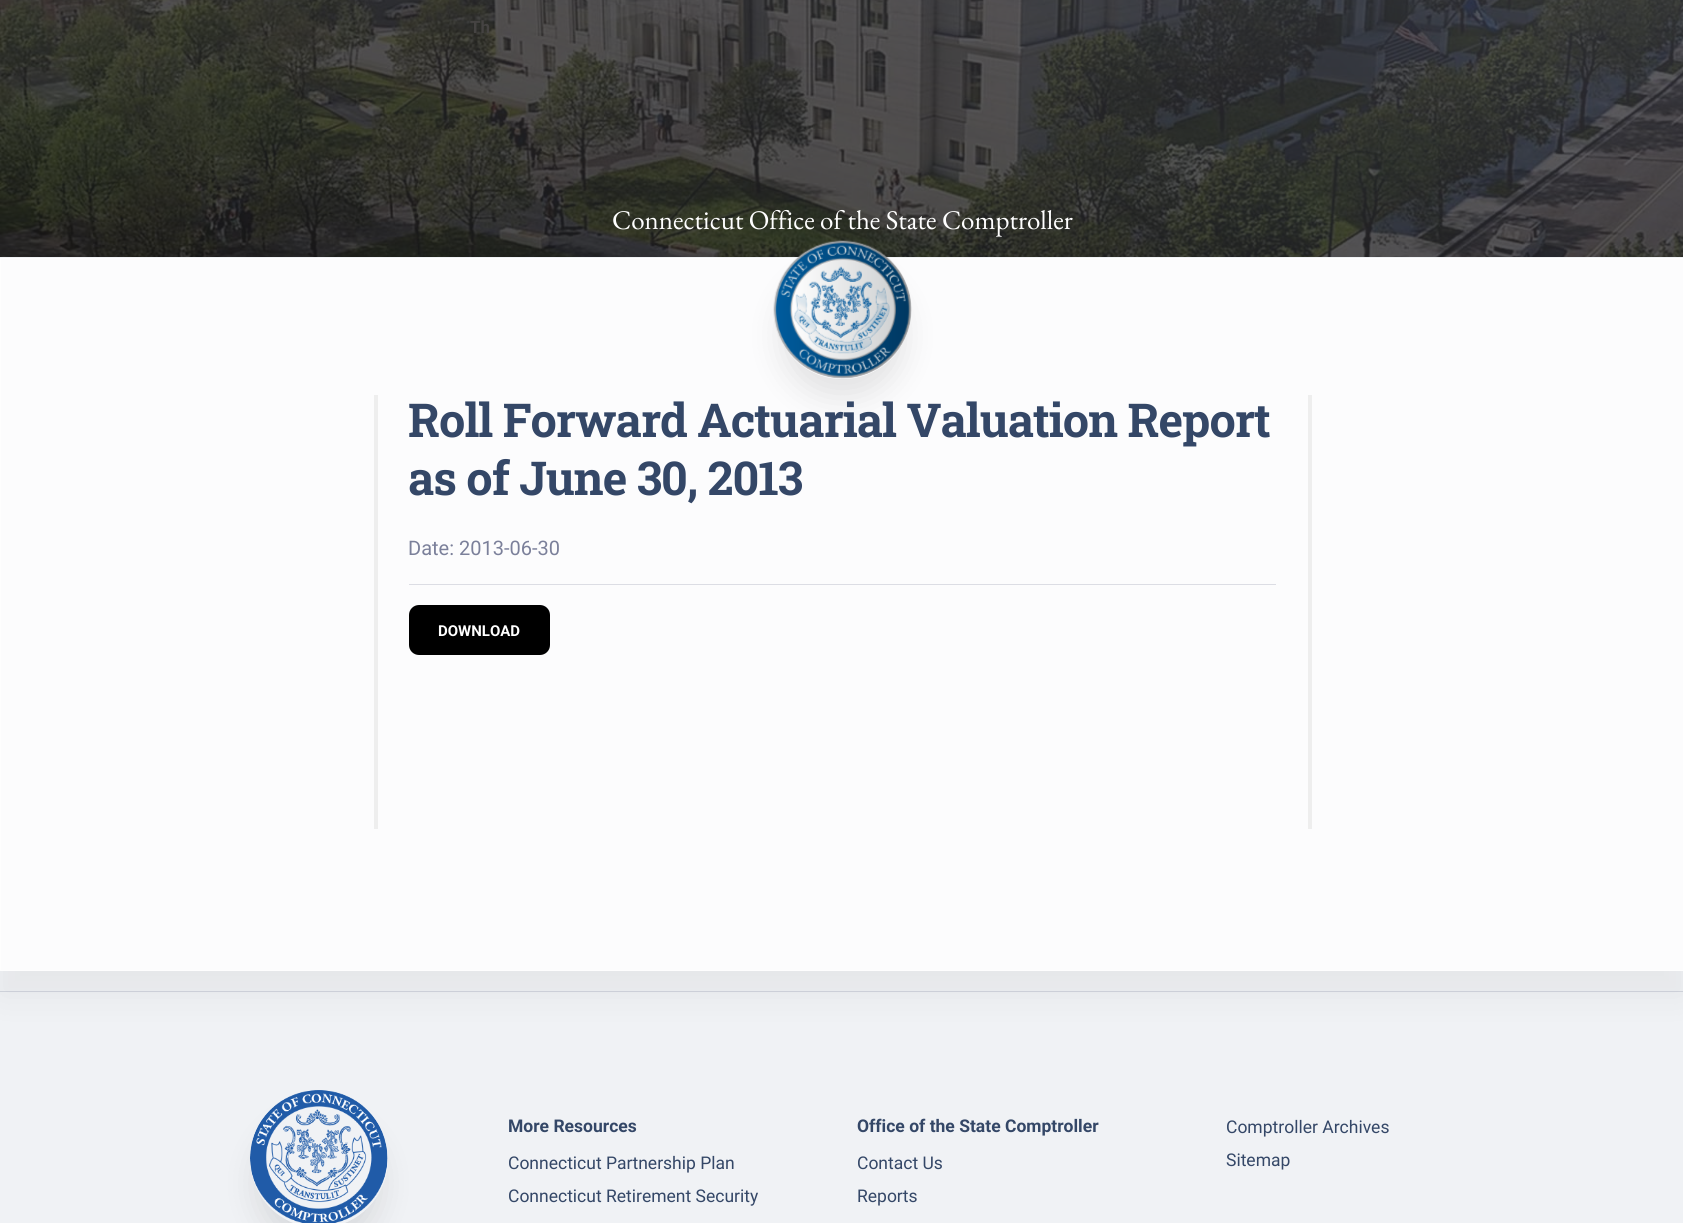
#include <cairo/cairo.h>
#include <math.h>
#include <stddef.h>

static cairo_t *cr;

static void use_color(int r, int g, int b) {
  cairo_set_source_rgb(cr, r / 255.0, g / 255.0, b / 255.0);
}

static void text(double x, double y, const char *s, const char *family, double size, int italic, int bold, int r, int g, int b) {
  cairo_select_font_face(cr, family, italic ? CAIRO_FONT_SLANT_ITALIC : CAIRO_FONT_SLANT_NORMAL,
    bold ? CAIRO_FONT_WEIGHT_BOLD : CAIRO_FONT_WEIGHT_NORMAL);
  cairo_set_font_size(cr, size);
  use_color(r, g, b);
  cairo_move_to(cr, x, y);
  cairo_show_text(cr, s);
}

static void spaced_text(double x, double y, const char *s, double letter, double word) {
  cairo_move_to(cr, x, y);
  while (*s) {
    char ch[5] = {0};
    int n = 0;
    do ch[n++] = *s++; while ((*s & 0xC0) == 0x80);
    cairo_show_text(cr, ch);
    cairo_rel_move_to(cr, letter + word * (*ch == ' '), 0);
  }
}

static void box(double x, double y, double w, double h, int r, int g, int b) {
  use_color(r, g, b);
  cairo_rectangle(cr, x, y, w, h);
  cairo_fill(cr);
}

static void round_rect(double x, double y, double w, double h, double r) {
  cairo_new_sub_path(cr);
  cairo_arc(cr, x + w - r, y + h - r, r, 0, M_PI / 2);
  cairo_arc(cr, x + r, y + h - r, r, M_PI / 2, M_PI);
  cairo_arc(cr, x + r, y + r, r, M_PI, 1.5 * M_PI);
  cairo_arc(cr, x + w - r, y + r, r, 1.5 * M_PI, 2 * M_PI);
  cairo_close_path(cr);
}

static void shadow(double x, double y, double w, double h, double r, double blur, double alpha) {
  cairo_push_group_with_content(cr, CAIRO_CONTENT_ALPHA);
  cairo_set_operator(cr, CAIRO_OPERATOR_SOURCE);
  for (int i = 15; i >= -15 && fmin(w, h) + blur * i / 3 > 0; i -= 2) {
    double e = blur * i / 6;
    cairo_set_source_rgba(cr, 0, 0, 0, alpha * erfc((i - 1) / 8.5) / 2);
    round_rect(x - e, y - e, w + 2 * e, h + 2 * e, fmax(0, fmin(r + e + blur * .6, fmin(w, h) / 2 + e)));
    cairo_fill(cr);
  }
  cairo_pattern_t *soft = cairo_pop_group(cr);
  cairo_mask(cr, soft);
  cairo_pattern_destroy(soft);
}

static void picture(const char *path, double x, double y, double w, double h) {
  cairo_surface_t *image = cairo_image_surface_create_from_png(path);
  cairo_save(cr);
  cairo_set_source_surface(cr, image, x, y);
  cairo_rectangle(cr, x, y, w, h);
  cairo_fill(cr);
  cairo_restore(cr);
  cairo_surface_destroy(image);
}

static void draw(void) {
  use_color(240, 242, 245);
  cairo_paint(cr);
  picture("img_01.png", 0, 0, 1683, 257);
  use_color(0, 0, 0);
  shadow(0, 283, 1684, 713, 0, 17, 0.05);
  use_color(252, 252, 253);
  cairo_rectangle(cr, 0.5, 258.5, 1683, 712);
  cairo_fill_preserve(cr);
  use_color(254, 254, 254);
  cairo_set_line_width(cr, 1);
  cairo_stroke(cr);
  cairo_save(cr);
  cairo_set_fill_rule(cr, CAIRO_FILL_RULE_EVEN_ODD);
  cairo_new_path(cr);
  cairo_move_to(cr, 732, 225);
  cairo_line_to(cr, 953, 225);
  cairo_line_to(cr, 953, 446);
  cairo_line_to(cr, 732, 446);
  cairo_close_path(cr);
  cairo_move_to(cr, 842.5, 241);
  cairo_curve_to(cr, 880.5, 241, 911, 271.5, 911, 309.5);
  cairo_line_to(cr, 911, 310.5);
  cairo_curve_to(cr, 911, 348.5, 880.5, 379, 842.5, 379);
  cairo_curve_to(cr, 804.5, 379, 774, 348.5, 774, 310.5);
  cairo_line_to(cr, 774, 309.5);
  cairo_curve_to(cr, 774, 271.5, 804.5, 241, 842.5, 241);
  cairo_close_path(cr);
  cairo_clip(cr);
  use_color(0, 0, 0);
  shadow(780, 273, 125, 125, 62.5, 15.5, 0.1);
  cairo_restore(cr);
  picture("img_02.png", 773, 240, 139, 139);
  box(1308, 395, 4, 434, 238, 238, 238);
  box(374, 395, 4, 434, 238, 238, 238);
  box(409, 584, 867, 1, 220, 221, 228);
  use_color(0, 0, 0);
  round_rect(409, 605, 141, 50, 10);
  cairo_fill(cr);
  cairo_set_source_rgba(cr, 0.482, 0.502, 0.604, 0.25);
  cairo_rectangle(cr, 0, 991, 1683, 1);
  cairo_fill(cr);
  cairo_save(cr);
  cairo_set_fill_rule(cr, CAIRO_FILL_RULE_EVEN_ODD);
  cairo_new_path(cr);
  cairo_move_to(cr, 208, 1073);
  cairo_line_to(cr, 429, 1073);
  cairo_line_to(cr, 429, 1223);
  cairo_line_to(cr, 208, 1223);
  cairo_close_path(cr);
  cairo_move_to(cr, 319, 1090);
  cairo_curve_to(cr, 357, 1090, 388, 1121, 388, 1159);
  cairo_curve_to(cr, 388, 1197, 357, 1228, 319, 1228);
  cairo_curve_to(cr, 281, 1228, 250, 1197, 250, 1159);
  cairo_curve_to(cr, 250, 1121, 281, 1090, 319, 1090);
  cairo_close_path(cr);
  cairo_clip(cr);
  use_color(0, 0, 0);
  shadow(256, 1121, 125, 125, 62.5, 15.5, 0.1);
  cairo_restore(cr);
  picture("img_03.png", 250, 1090, 138, 133);
  text(470, 33, "Th", "Roboto", 17, 0, 1, 69, 67, 66);
  text(612, 229, "Connecticut Office of the State Comptroller", "EB Garamond", 27, 0, 0, 255, 255, 255);
  cairo_select_font_face(cr, "Roboto Slab", CAIRO_FONT_SLANT_NORMAL, CAIRO_FONT_WEIGHT_BOLD);
  cairo_set_font_size(cr, 46.7);
  use_color(52, 71, 103);
  spaced_text(408, 437, "Roll Forward Actuarial Valuation Report", -1, 0);
  spaced_text(408, 495, "as of June 30, 2013", -1, 0);
  text(408, 555, "Date: 2013-06-30", "Roboto", 20, 0, 0, 123, 128, 154);
  text(438, 636, "DOWNLOAD", "Roboto", 15, 0, 1, 255, 255, 255);
  text(508, 1132, "More Resources", "Roboto", 17.5, 0, 1, 52, 71, 103);
  text(508, 1169, "Connecticut Partnership Plan", "Roboto", 17.5, 0, 0, 52, 71, 103);
  text(508, 1202, "Connecticut Retirement Security", "Roboto", 17.5, 0, 0, 52, 71, 103);
  text(857, 1132, "Office of the State Comptroller", "Roboto", 17.5, 0, 1, 52, 71, 103);
  text(857, 1169, "Contact Us", "Roboto", 17.5, 0, 0, 52, 71, 103);
  text(857, 1202, "Reports", "Roboto", 17.5, 0, 0, 52, 71, 103);
  text(1226, 1133, "Comptroller Archives", "Roboto", 17.5, 0, 0, 52, 71, 103);
  text(1226, 1166, "Sitemap", "Roboto", 17.5, 0, 0, 52, 71, 103);
}

int main(void) {
  cairo_surface_t *surface = cairo_image_surface_create(CAIRO_FORMAT_RGB24, 1683, 1223);
  cr = cairo_create(surface);
  cairo_font_options_t *options = cairo_font_options_create();
  cairo_font_options_set_hint_metrics(options, CAIRO_HINT_METRICS_OFF);
  cairo_font_options_set_hint_style(options, CAIRO_HINT_STYLE_NONE);
  cairo_set_font_options(cr, options);
  cairo_set_miter_limit(cr, 4);
  draw();
  cairo_surface_write_to_png(surface, "out.png");
  cairo_font_options_destroy(options);
  cairo_destroy(cr);
  cairo_surface_destroy(surface);
  return 0;
}
